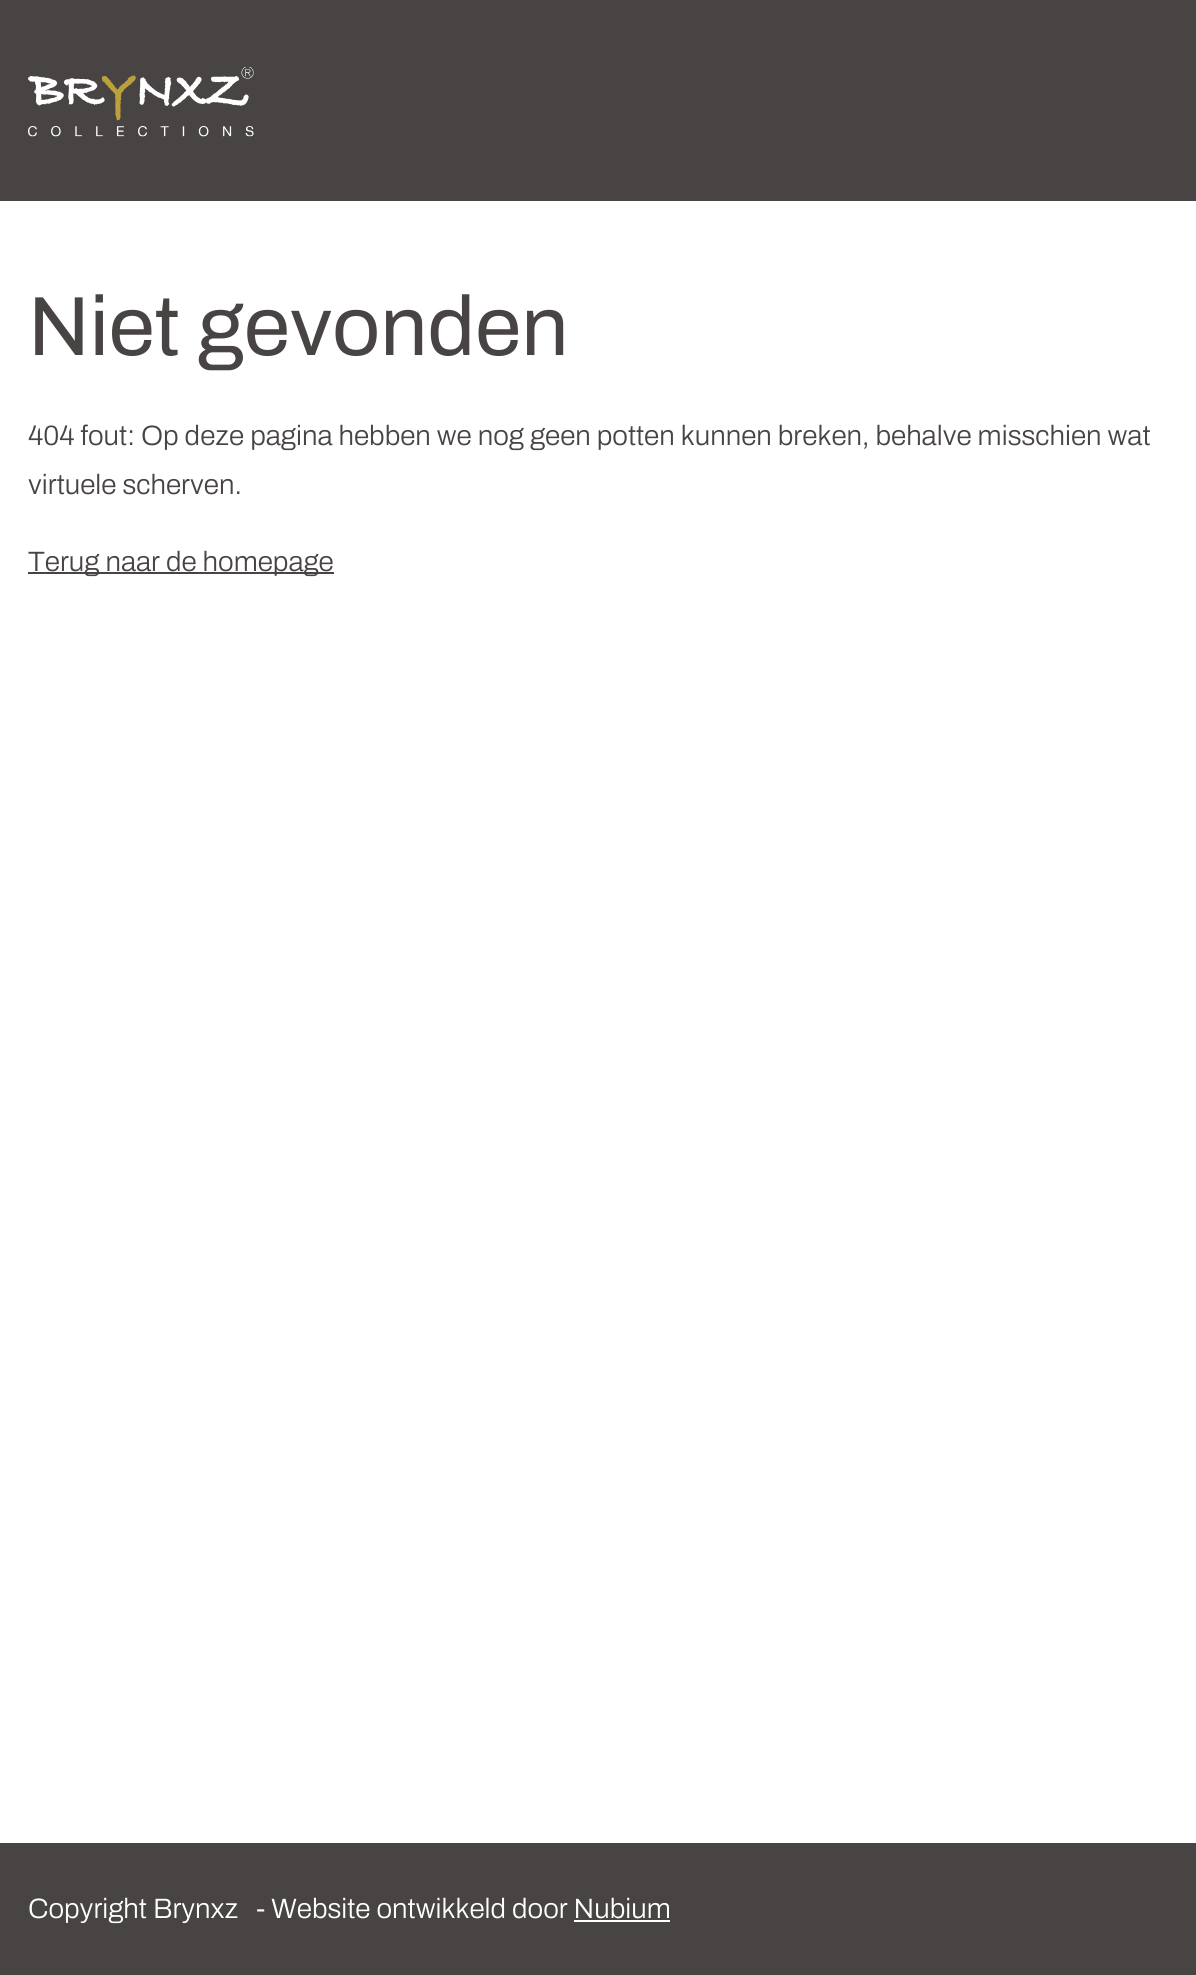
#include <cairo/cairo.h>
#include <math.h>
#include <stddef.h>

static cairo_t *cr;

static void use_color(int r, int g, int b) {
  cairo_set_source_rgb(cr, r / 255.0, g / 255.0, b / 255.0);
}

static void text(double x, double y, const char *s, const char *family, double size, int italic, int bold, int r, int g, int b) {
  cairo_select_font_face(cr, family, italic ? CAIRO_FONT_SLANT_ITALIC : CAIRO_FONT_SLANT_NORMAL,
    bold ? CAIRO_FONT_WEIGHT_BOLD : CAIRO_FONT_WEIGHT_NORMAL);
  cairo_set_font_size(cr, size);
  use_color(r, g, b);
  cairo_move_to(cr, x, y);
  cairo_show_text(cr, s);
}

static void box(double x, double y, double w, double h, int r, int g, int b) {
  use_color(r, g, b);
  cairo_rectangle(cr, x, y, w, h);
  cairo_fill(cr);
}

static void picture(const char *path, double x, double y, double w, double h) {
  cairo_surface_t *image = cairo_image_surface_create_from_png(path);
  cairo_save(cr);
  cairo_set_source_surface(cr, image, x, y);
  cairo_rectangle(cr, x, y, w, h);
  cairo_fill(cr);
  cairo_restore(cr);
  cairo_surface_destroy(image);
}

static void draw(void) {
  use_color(255, 255, 255);
  cairo_paint(cr);
  box(0, 0, 1196, 201, 73, 68, 68);
  picture("img_01.png", 28, 67, 226, 70);
  box(28, 572, 306, 2, 73, 68, 68);
  box(0, 1843, 1196, 132, 73, 68, 68);
  box(574, 1920, 96, 2, 255, 255, 255);
  text(28, 355, "Niet gevonden", "Archivo", 84, 0, 0, 73, 68, 68);
  text(28, 445, "404 fout: Op deze pagina hebben we nog geen potten kunnen breken, behalve misschien wat", "Archivo Light", 28, 0, 0, 73, 68, 68);
  text(28, 494, "virtuele scherven.", "Archivo Light", 28, 0, 0, 73, 68, 68);
  text(28, 571, "Terug naar de homepage", "Archivo Light", 28, 0, 0, 73, 68, 68);
  text(28, 1918, "Copyright Brynxz", "Archivo Light", 28, 0, 0, 255, 255, 255);
  text(256, 1918, "- Website ontwikkeld door Nubium", "Archivo Light", 28, 0, 0, 255, 255, 255);
}

int main(void) {
  cairo_surface_t *surface = cairo_image_surface_create(CAIRO_FORMAT_RGB24, 1196, 1975);
  cr = cairo_create(surface);
  cairo_font_options_t *options = cairo_font_options_create();
  cairo_font_options_set_hint_metrics(options, CAIRO_HINT_METRICS_OFF);
  cairo_font_options_set_hint_style(options, CAIRO_HINT_STYLE_NONE);
  cairo_set_font_options(cr, options);
  cairo_set_miter_limit(cr, 4);
  draw();
  cairo_surface_write_to_png(surface, "out.png");
  cairo_font_options_destroy(options);
  cairo_destroy(cr);
  cairo_surface_destroy(surface);
  return 0;
}
